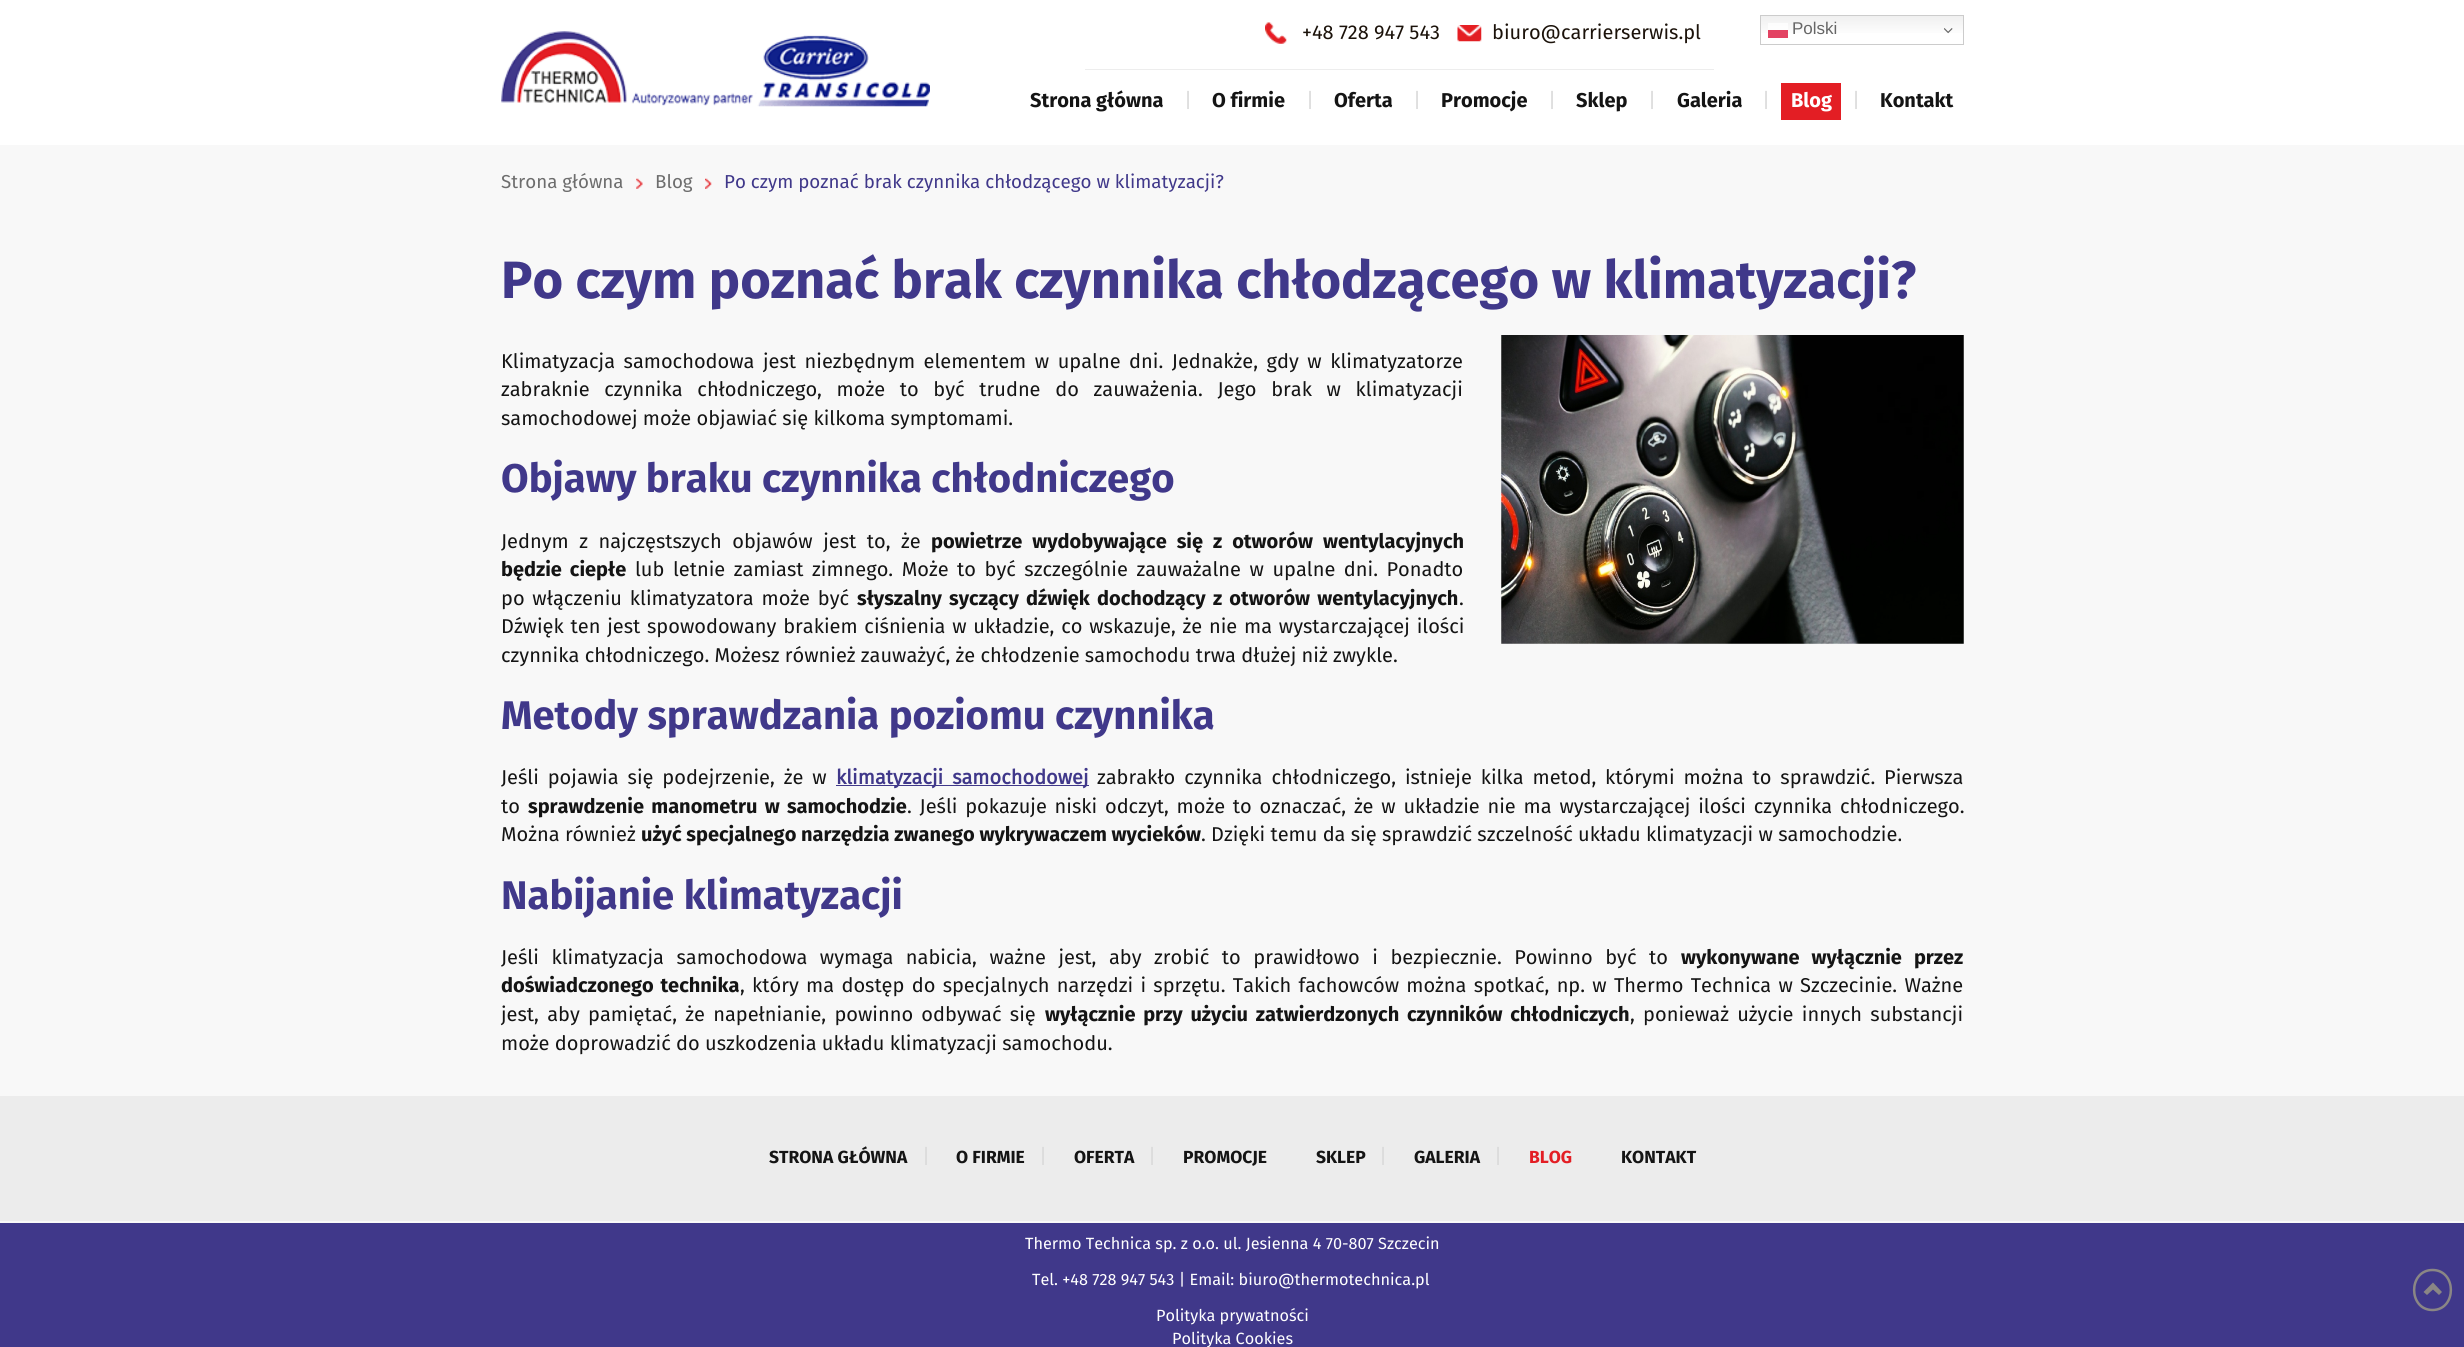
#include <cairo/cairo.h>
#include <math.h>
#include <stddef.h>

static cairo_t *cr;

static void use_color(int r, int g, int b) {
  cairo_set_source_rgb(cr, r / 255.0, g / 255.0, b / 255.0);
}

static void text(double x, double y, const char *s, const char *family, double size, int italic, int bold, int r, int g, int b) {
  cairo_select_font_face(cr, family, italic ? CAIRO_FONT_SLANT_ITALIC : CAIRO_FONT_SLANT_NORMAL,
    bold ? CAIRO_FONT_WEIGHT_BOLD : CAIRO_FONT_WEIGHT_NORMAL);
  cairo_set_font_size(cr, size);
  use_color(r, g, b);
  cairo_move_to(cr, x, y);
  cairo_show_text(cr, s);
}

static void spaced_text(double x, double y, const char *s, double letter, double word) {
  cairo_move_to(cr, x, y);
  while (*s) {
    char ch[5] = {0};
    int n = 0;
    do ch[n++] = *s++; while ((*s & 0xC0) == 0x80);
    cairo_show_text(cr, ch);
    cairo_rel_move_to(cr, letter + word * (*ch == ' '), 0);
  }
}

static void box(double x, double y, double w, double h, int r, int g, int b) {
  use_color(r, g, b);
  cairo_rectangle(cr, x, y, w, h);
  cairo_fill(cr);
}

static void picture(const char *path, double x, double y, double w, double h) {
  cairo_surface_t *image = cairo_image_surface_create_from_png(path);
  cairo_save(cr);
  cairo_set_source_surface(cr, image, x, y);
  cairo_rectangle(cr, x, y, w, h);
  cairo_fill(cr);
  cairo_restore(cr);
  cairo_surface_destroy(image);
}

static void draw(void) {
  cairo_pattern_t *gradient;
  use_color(248, 248, 248);
  cairo_paint(cr);
  box(0, 0, 2464, 145, 255, 255, 255);
  picture("img_01.png", 501, 31, 429, 76);
  box(1085, 69, 629, 1, 237, 237, 237);
  picture("img_02.png", 1265, 22, 22, 22);
  picture("img_03.png", 1457, 25, 25, 17);
  gradient = cairo_pattern_create_linear(1862, 15, 1862, 45);
  cairo_pattern_add_color_stop_rgba(gradient, 0, 0.937, 0.937, 0.937, 1);
  cairo_pattern_add_color_stop_rgba(gradient, 0.7, 1, 1, 1, 1);
  cairo_set_source(cr, gradient);
  cairo_pattern_destroy(gradient);
  cairo_rectangle(cr, 1761, 16, 202, 17);
  cairo_fill(cr);
  gradient = cairo_pattern_create_linear(1862, 15, 1862, 45);
  cairo_pattern_add_color_stop_rgba(gradient, 0, 0.988, 0.988, 0.988, 1);
  cairo_pattern_add_color_stop_rgba(gradient, 0.7, 1, 1, 1, 1);
  cairo_set_source(cr, gradient);
  cairo_pattern_destroy(gradient);
  cairo_rectangle(cr, 1768, 23, 20, 7);
  cairo_fill(cr);
  cairo_rectangle(cr, 1760.5, 15.5, 203, 29);
  use_color(204, 204, 204);
  cairo_set_line_width(cr, 1);
  cairo_stroke(cr);
  box(1768, 30, 20, 8, 227, 67, 99);
  picture("img_04.png", 1944, 28, 9, 6);
  box(1781, 83, 60, 37, 227, 30, 36);
  picture("img_05.png", 636, 178, 7, 11);
  picture("img_06.png", 705, 178, 7, 11);
  picture("img_07.png", 1501, 335, 463, 309);
  box(836, 785, 253, 1, 64, 56, 138);
  box(0, 1096, 2464, 125, 236, 236, 236);
  box(0, 1223, 2464, 124, 64, 56, 138);
  cairo_new_path(cr);
  cairo_move_to(cr, 2432.5, 1270);
  cairo_curve_to(cr, 2457, 1270, 2457, 1310, 2432.5, 1310);
  cairo_curve_to(cr, 2408, 1310, 2408, 1270, 2432.5, 1270);
  cairo_close_path(cr);
  use_color(138, 134, 133);
  cairo_set_line_width(cr, 2.5);
  cairo_stroke(cr);
  cairo_new_path(cr);
  cairo_move_to(cr, 2442, 1292);
  cairo_line_to(cr, 2439, 1295);
  cairo_line_to(cr, 2433, 1289.5);
  cairo_line_to(cr, 2427, 1295);
  cairo_line_to(cr, 2423.5, 1292);
  cairo_line_to(cr, 2433, 1282.5);
  cairo_close_path(cr);
  cairo_fill(cr);
  text(1302, 39, "+48 728 947 543", "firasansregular", 20, 0, 0, 27, 18, 10);
  text(1492, 39, "biuro@carrierserwis.pl", "firasansregular", 20, 0, 0, 27, 18, 10);
  text(1792, 34, "Polski", "Liberation Sans", 17, 0, 0, 102, 102, 102);
  text(1030, 107, "Strona główna", "Fira Sans", 20, 0, 1, 20, 20, 20);
  text(1184, 107, "|", "firasansregular", 20, 0, 0, 218, 218, 218);
  text(1212, 107, "O firmie", "Fira Sans", 20, 0, 1, 20, 20, 20);
  text(1306, 107, "|", "firasansregular", 20, 0, 0, 218, 218, 218);
  text(1334, 107, "Oferta", "Fira Sans", 20, 0, 1, 20, 20, 20);
  text(1413, 107, "|", "firasansregular", 20, 0, 0, 218, 218, 218);
  text(1441, 107, "Promocje", "Fira Sans", 20, 0, 1, 20, 20, 20);
  text(1548, 107, "|", "firasansregular", 20, 0, 0, 218, 218, 218);
  text(1576, 107, "Sklep", "Fira Sans", 20, 0, 1, 20, 20, 20);
  text(1648, 107, "|", "firasansregular", 20, 0, 0, 218, 218, 218);
  text(1677, 107, "Galeria", "Fira Sans", 20, 0, 1, 20, 20, 20);
  text(1762, 107, "|", "firasansregular", 20, 0, 0, 218, 218, 218);
  text(1791, 107, "Blog", "Fira Sans", 20, 0, 1, 255, 255, 255);
  text(1852, 107, "|", "firasansregular", 20, 0, 0, 218, 218, 218);
  text(1880, 107, "Kontakt", "Fira Sans", 20, 0, 1, 20, 20, 20);
  text(501, 188, "Strona główna", "firasansregular", 18.75, 0, 0, 109, 109, 109);
  text(655, 188, "Blog", "firasansregular", 18.75, 0, 0, 109, 109, 109);
  text(724, 188, "Po czym poznać brak czynnika chłodzącego w klimatyzacji?", "firasansregular", 18.75, 0, 0, 64, 56, 138);
  text(501, 298, "Po czym poznać brak czynnika chłodzącego w klimatyzacji?", "Fira Sans", 52.5, 0, 1, 64, 56, 138);
  cairo_select_font_face(cr, "firasansregular", CAIRO_FONT_SLANT_NORMAL, CAIRO_FONT_WEIGHT_NORMAL);
  cairo_set_font_size(cr, 20);
  use_color(20, 20, 20);
  spaced_text(501, 368, "Klimatyzacja samochodowa jest niezbędnym elementem w upalne dni. Jednakże, gdy w klimatyzatorze", 0, 3.25);
  spaced_text(501, 396, "zabraknie czynnika chłodniczego, może to być trudne do zauważenia. Jego brak w klimatyzacji", 0, 9.4);
  text(501, 425, "samochodowej może objawiać się kilkoma symptomami.", "firasansregular", 20, 0, 0, 20, 20, 20);
  text(501, 492, "Objawy braku czynnika chłodniczego", "Fira Sans", 40, 0, 1, 64, 56, 138);
  cairo_select_font_face(cr, "firasansregular", CAIRO_FONT_SLANT_NORMAL, CAIRO_FONT_WEIGHT_NORMAL);
  cairo_set_font_size(cr, 20);
  use_color(20, 20, 20);
  spaced_text(501, 548, "Jednym z najczęstszych objawów jest to, że", 0, 5.25);
  cairo_select_font_face(cr, "Fira Sans", CAIRO_FONT_SLANT_NORMAL, CAIRO_FONT_WEIGHT_BOLD);
  spaced_text(931, 548, "powietrze wydobywające się z otworów wentylacyjnych", 0, 5.25);
  spaced_text(501, 576, "będzie ciepłe", 0, 3.25);
  cairo_select_font_face(cr, "firasansregular", CAIRO_FONT_SLANT_NORMAL, CAIRO_FONT_WEIGHT_NORMAL);
  spaced_text(635, 576, "lub letnie zamiast zimnego. Może to być szczególnie zauważalne w upalne dni. Ponadto", 0, 3.25);
  spaced_text(501, 605, "po włączeniu klimatyzatora może być", 0, 2.5);
  cairo_select_font_face(cr, "Fira Sans", CAIRO_FONT_SLANT_NORMAL, CAIRO_FONT_WEIGHT_BOLD);
  spaced_text(857, 605, "słyszalny syczący dźwięk dochodzący z otworów wentylacyjnych", 0, 2.5);
  text(1459, 605, ".", "firasansregular", 20, 0, 0, 20, 20, 20);
  spaced_text(501, 633, "Dźwięk ten jest spowodowany brakiem ciśnienia w układzie, co wskazuje, że nie ma wystarczającej ilości", 0, 1.5);
  text(501, 662, "czynnika chłodniczego. Możesz również zauważyć, że chłodzenie samochodu trwa dłużej niż zwykle.", "firasansregular", 20, 0, 0, 20, 20, 20);
  text(501, 729, "Metody sprawdzania poziomu czynnika", "Fira Sans", 40, 0, 1, 64, 56, 138);
  cairo_select_font_face(cr, "firasansregular", CAIRO_FONT_SLANT_NORMAL, CAIRO_FONT_WEIGHT_NORMAL);
  cairo_set_font_size(cr, 20);
  use_color(20, 20, 20);
  spaced_text(501, 784, "Jeśli pojawia się podejrzenie, że w", 0, 3.6);
  cairo_select_font_face(cr, "firasansregular", CAIRO_FONT_SLANT_NORMAL, CAIRO_FONT_WEIGHT_BOLD);
  use_color(64, 56, 138);
  spaced_text(836, 784, "klimatyzacji samochodowej", 0, 3.6);
  cairo_select_font_face(cr, "firasansregular", CAIRO_FONT_SLANT_NORMAL, CAIRO_FONT_WEIGHT_NORMAL);
  use_color(20, 20, 20);
  spaced_text(1097, 784, "zabrakło czynnika chłodniczego, istnieje kilka metod, którymi można to sprawdzić. Pierwsza", 0, 3.6);
  text(501, 813, "to", "firasansregular", 20, 0, 0, 20, 20, 20);
  cairo_select_font_face(cr, "Fira Sans", CAIRO_FONT_SLANT_NORMAL, CAIRO_FONT_WEIGHT_BOLD);
  spaced_text(528, 813, "sprawdzenie manometru w samochodzie", 0, 2.5);
  cairo_select_font_face(cr, "firasansregular", CAIRO_FONT_SLANT_NORMAL, CAIRO_FONT_WEIGHT_NORMAL);
  spaced_text(907, 813, ". Jeśli pokazuje niski odczyt, może to oznaczać, że w układzie nie ma wystarczającej ilości czynnika chłodniczego.", 0, 2.5);
  text(501, 841, "Można również", "firasansregular", 20, 0, 0, 20, 20, 20);
  text(641, 841, "użyć specjalnego narzędzia zwanego wykrywaczem wycieków", "Fira Sans", 20, 0, 1, 20, 20, 20);
  text(1201, 841, ". Dzięki temu da się sprawdzić szczelność układu klimatyzacji w samochodzie.", "firasansregular", 20, 0, 0, 20, 20, 20);
  text(501, 909, "Nabijanie klimatyzacji", "Fira Sans", 40, 0, 1, 64, 56, 138);
  cairo_select_font_face(cr, "firasansregular", CAIRO_FONT_SLANT_NORMAL, CAIRO_FONT_WEIGHT_NORMAL);
  cairo_set_font_size(cr, 20);
  use_color(20, 20, 20);
  spaced_text(501, 964, "Jeśli klimatyzacja samochodowa wymaga nabicia, ważne jest, aby zrobić to prawidłowo i bezpiecznie. Powinno być to", 0, 7.25);
  cairo_select_font_face(cr, "Fira Sans", CAIRO_FONT_SLANT_NORMAL, CAIRO_FONT_WEIGHT_BOLD);
  spaced_text(1681, 964, "wykonywane wyłącznie przez", 0, 7.25);
  spaced_text(501, 992, "doświadczonego technika", 0, 2);
  cairo_select_font_face(cr, "firasansregular", CAIRO_FONT_SLANT_NORMAL, CAIRO_FONT_WEIGHT_NORMAL);
  spaced_text(740, 992, ", który ma dostęp do specjalnych narzędzi i sprzętu. Takich fachowców można spotkać, np. w Thermo Technica w Szczecinie. Ważne", 0, 2);
  spaced_text(501, 1021, "jest, aby pamiętać, że napełnianie, powinno odbywać się", 0, 3);
  cairo_select_font_face(cr, "Fira Sans", CAIRO_FONT_SLANT_NORMAL, CAIRO_FONT_WEIGHT_BOLD);
  spaced_text(1045, 1021, "wyłącznie przy użyciu zatwierdzonych czynników chłodniczych", 0, 3);
  cairo_select_font_face(cr, "firasansregular", CAIRO_FONT_SLANT_NORMAL, CAIRO_FONT_WEIGHT_NORMAL);
  spaced_text(1630, 1021, ", ponieważ użycie innych substancji", 0, 3);
  text(501, 1050, "może doprowadzić do uszkodzenia układu klimatyzacji samochodu.", "firasansregular", 20, 0, 0, 20, 20, 20);
  text(769, 1163, "STRONA GŁÓWNA", "Fira Sans", 17.5, 0, 1, 20, 20, 20);
  text(922, 1163, "|", "firasansregular", 20, 0, 0, 218, 218, 218);
  text(956, 1163, "O FIRMIE", "Fira Sans", 17.5, 0, 1, 20, 20, 20);
  text(1039, 1163, "|", "firasansregular", 20, 0, 0, 218, 218, 218);
  text(1074, 1163, "OFERTA", "Fira Sans", 17.5, 0, 1, 20, 20, 20);
  text(1148, 1163, "|", "firasansregular", 20, 0, 0, 218, 218, 218);
  text(1183, 1163, "PROMOCJE", "Fira Sans", 17.5, 0, 1, 20, 20, 20);
  text(1316, 1163, "SKLEP", "Fira Sans", 17.5, 0, 1, 20, 20, 20);
  text(1379, 1163, "|", "firasansregular", 20, 0, 0, 218, 218, 218);
  text(1414, 1163, "GALERIA", "Fira Sans", 17.5, 0, 1, 20, 20, 20);
  text(1494, 1163, "|", "firasansregular", 20, 0, 0, 218, 218, 218);
  text(1529, 1163, "BLOG", "Fira Sans", 17.5, 0, 1, 227, 30, 36);
  text(1621, 1163, "KONTAKT", "Fira Sans", 17.5, 0, 1, 20, 20, 20);
  text(1025, 1249, "Thermo Technica sp. z o.o. ul. Jesienna 4 70-807 Szczecin", "firasansregular", 16.25, 0, 0, 255, 255, 255);
  text(1032, 1285, "Tel. +48 728 947 543 | Email: biuro@thermotechnica.pl", "firasansregular", 16.25, 0, 0, 255, 255, 255);
  text(1156, 1321, "Polityka prywatności", "firasansregular", 16.25, 0, 0, 255, 255, 255);
  text(1172, 1344, "Polityka Cookies", "firasansregular", 16.25, 0, 0, 255, 255, 255);
}

int main(void) {
  cairo_surface_t *surface = cairo_image_surface_create(CAIRO_FORMAT_RGB24, 2464, 1347);
  cr = cairo_create(surface);
  cairo_font_options_t *options = cairo_font_options_create();
  cairo_font_options_set_hint_metrics(options, CAIRO_HINT_METRICS_OFF);
  cairo_font_options_set_hint_style(options, CAIRO_HINT_STYLE_NONE);
  cairo_set_font_options(cr, options);
  cairo_set_miter_limit(cr, 4);
  draw();
  cairo_surface_write_to_png(surface, "out.png");
  cairo_font_options_destroy(options);
  cairo_destroy(cr);
  cairo_surface_destroy(surface);
  return 0;
}
